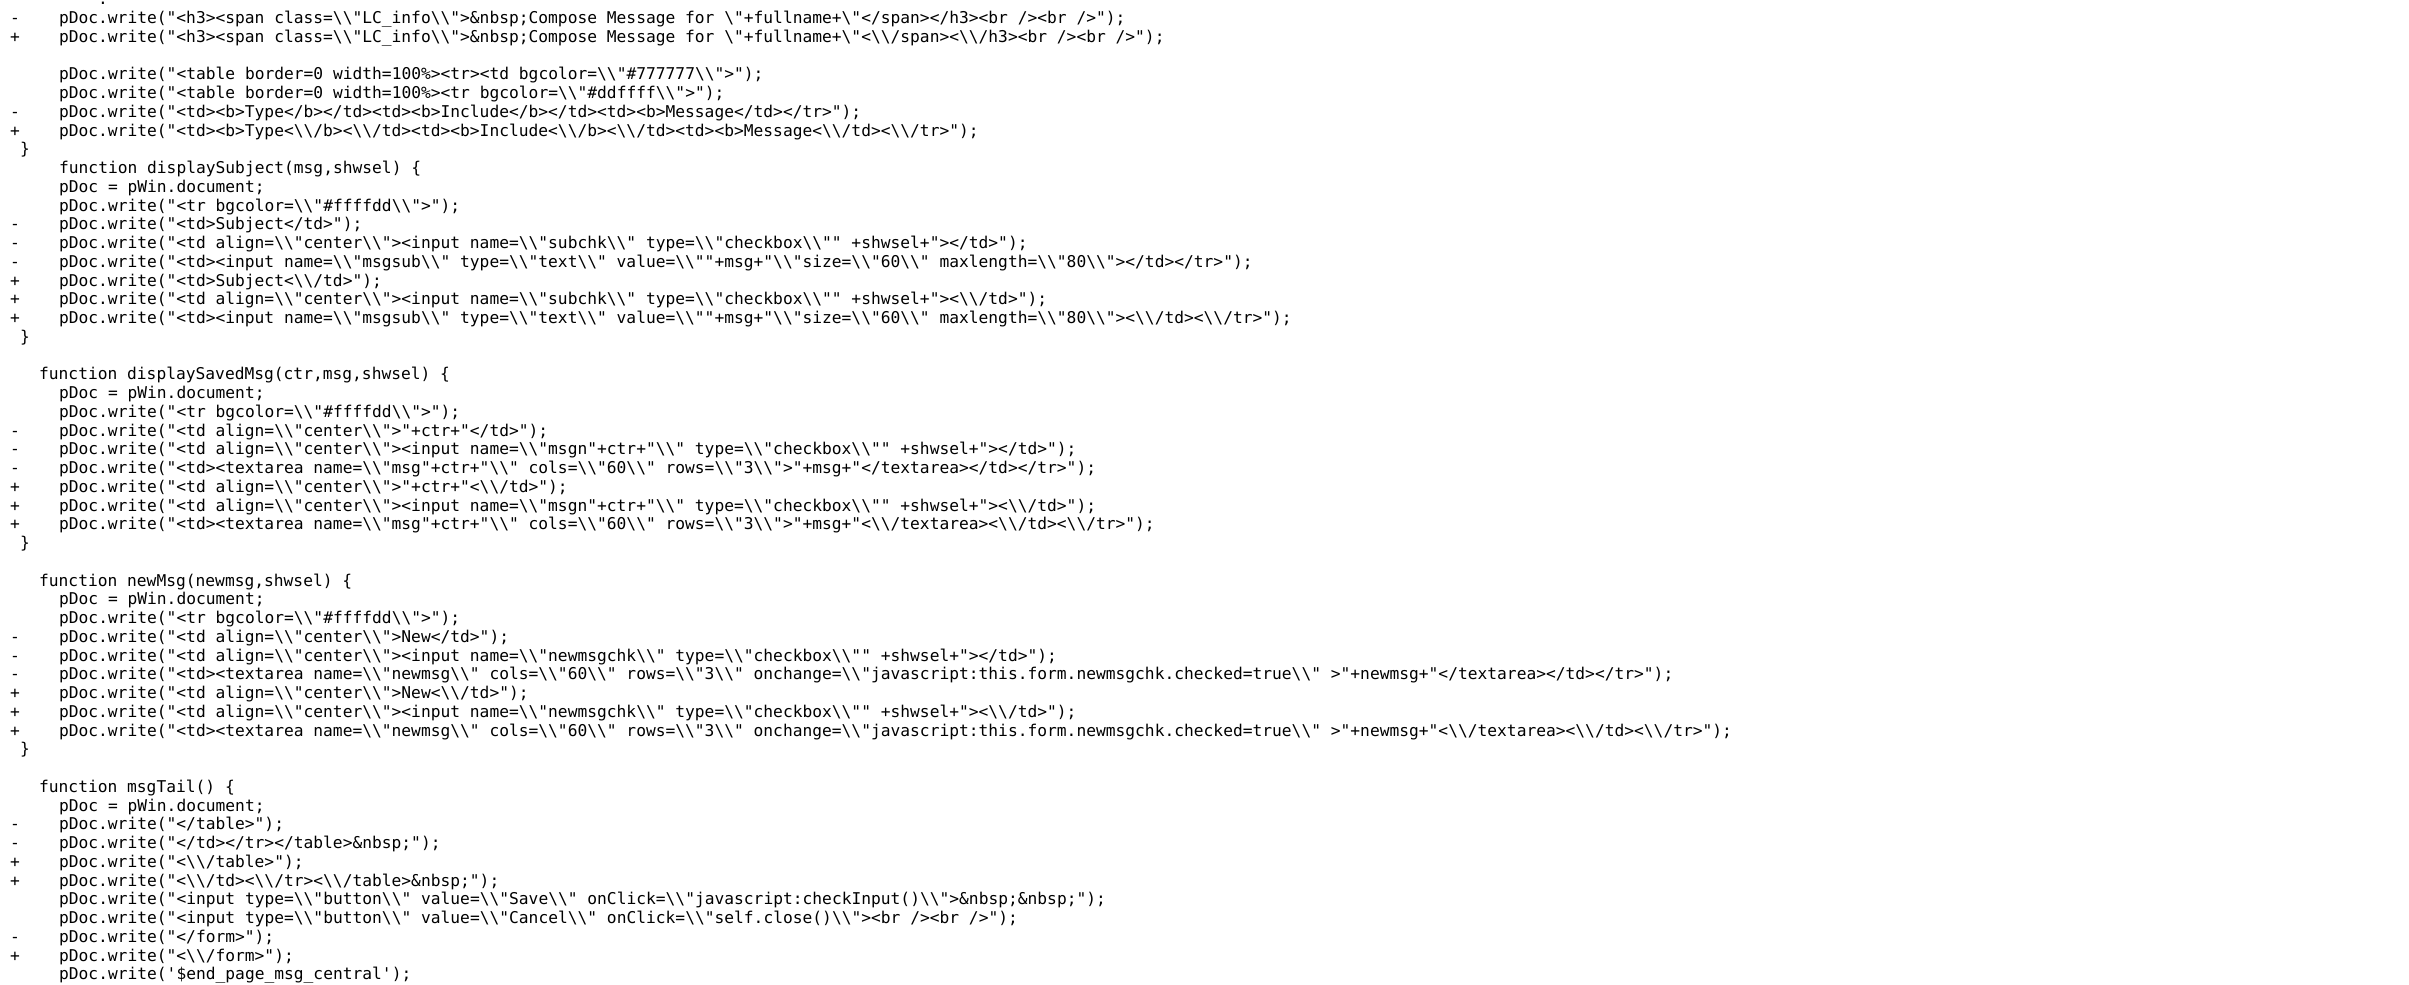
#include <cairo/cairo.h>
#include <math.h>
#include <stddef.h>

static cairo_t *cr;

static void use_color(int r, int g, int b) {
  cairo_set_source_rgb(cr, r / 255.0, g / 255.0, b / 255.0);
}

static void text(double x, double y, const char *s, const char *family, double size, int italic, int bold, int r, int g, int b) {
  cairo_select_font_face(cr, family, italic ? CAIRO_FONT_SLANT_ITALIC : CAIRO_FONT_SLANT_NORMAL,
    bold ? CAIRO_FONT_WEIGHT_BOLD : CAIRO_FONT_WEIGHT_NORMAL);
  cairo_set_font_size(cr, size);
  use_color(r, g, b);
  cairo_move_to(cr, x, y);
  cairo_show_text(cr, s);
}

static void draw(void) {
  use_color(255, 255, 255);
  cairo_paint(cr);
  text(98, 4, ".", "DejaVu Sans Mono", 16.25, 0, 0, 0, 0, 0);
  text(10, 23, "-    pDoc.write(\"<h3><span class=\\\\\"LC_info\\\\\">&nbsp;Compose Message for \\\"+fullname+\\\"</span></h3><br /><br />\");", "DejaVu Sans Mono", 16.25, 0, 0, 0, 0, 0);
  text(10, 42, "+    pDoc.write(\"<h3><span class=\\\\\"LC_info\\\\\">&nbsp;Compose Message for \\\"+fullname+\\\"<\\\\/span><\\\\/h3><br /><br />\");", "DejaVu Sans Mono", 16.25, 0, 0, 0, 0, 0);
  text(59, 79, "pDoc.write(\"<table border=0 width=100%><tr><td bgcolor=\\\\\"#777777\\\\\">\");", "DejaVu Sans Mono", 16.25, 0, 0, 0, 0, 0);
  text(59, 98, "pDoc.write(\"<table border=0 width=100%><tr bgcolor=\\\\\"#ddffff\\\\\">\");", "DejaVu Sans Mono", 16.25, 0, 0, 0, 0, 0);
  text(10, 117, "-    pDoc.write(\"<td><b>Type</b></td><td><b>Include</b></td><td><b>Message</td></tr>\");", "DejaVu Sans Mono", 16.25, 0, 0, 0, 0, 0);
  text(10, 136, "+    pDoc.write(\"<td><b>Type<\\\\/b><\\\\/td><td><b>Include<\\\\/b><\\\\/td><td><b>Message<\\\\/td><\\\\/tr>\");", "DejaVu Sans Mono", 16.25, 0, 0, 0, 0, 0);
  text(20, 154, "}", "DejaVu Sans Mono", 16.25, 0, 0, 0, 0, 0);
  text(59, 173, "function displaySubject(msg,shwsel) {", "DejaVu Sans Mono", 16.25, 0, 0, 0, 0, 0);
  text(59, 192, "pDoc = pWin.document;", "DejaVu Sans Mono", 16.25, 0, 0, 0, 0, 0);
  text(59, 211, "pDoc.write(\"<tr bgcolor=\\\\\"#ffffdd\\\\\">\");", "DejaVu Sans Mono", 16.25, 0, 0, 0, 0, 0);
  text(10, 229, "-    pDoc.write(\"<td>Subject</td>\");", "DejaVu Sans Mono", 16.25, 0, 0, 0, 0, 0);
  text(10, 248, "-    pDoc.write(\"<td align=\\\\\"center\\\\\"><input name=\\\\\"subchk\\\\\" type=\\\\\"checkbox\\\\\"\" +shwsel+\"></td>\");", "DejaVu Sans Mono", 16.25, 0, 0, 0, 0, 0);
  text(10, 267, "-    pDoc.write(\"<td><input name=\\\\\"msgsub\\\\\" type=\\\\\"text\\\\\" value=\\\\\"\"+msg+\"\\\\\"size=\\\\\"60\\\\\" maxlength=\\\\\"80\\\\\"></td></tr>\");", "DejaVu Sans Mono", 16.25, 0, 0, 0, 0, 0);
  text(10, 286, "+    pDoc.write(\"<td>Subject<\\\\/td>\");", "DejaVu Sans Mono", 16.25, 0, 0, 0, 0, 0);
  text(10, 304, "+    pDoc.write(\"<td align=\\\\\"center\\\\\"><input name=\\\\\"subchk\\\\\" type=\\\\\"checkbox\\\\\"\" +shwsel+\"><\\\\/td>\");", "DejaVu Sans Mono", 16.25, 0, 0, 0, 0, 0);
  text(10, 323, "+    pDoc.write(\"<td><input name=\\\\\"msgsub\\\\\" type=\\\\\"text\\\\\" value=\\\\\"\"+msg+\"\\\\\"size=\\\\\"60\\\\\" maxlength=\\\\\"80\\\\\"><\\\\/td><\\\\/tr>\");", "DejaVu Sans Mono", 16.25, 0, 0, 0, 0, 0);
  text(20, 342, "}", "DejaVu Sans Mono", 16.25, 0, 0, 0, 0, 0);
  text(39, 379, "function displaySavedMsg(ctr,msg,shwsel) {", "DejaVu Sans Mono", 16.25, 0, 0, 0, 0, 0);
  text(59, 398, "pDoc = pWin.document;", "DejaVu Sans Mono", 16.25, 0, 0, 0, 0, 0);
  text(59, 417, "pDoc.write(\"<tr bgcolor=\\\\\"#ffffdd\\\\\">\");", "DejaVu Sans Mono", 16.25, 0, 0, 0, 0, 0);
  text(10, 436, "-    pDoc.write(\"<td align=\\\\\"center\\\\\">\"+ctr+\"</td>\");", "DejaVu Sans Mono", 16.25, 0, 0, 0, 0, 0);
  text(10, 454, "-    pDoc.write(\"<td align=\\\\\"center\\\\\"><input name=\\\\\"msgn\"+ctr+\"\\\\\" type=\\\\\"checkbox\\\\\"\" +shwsel+\"></td>\");", "DejaVu Sans Mono", 16.25, 0, 0, 0, 0, 0);
  text(10, 473, "-    pDoc.write(\"<td><textarea name=\\\\\"msg\"+ctr+\"\\\\\" cols=\\\\\"60\\\\\" rows=\\\\\"3\\\\\">\"+msg+\"</textarea></td></tr>\");", "DejaVu Sans Mono", 16.25, 0, 0, 0, 0, 0);
  text(10, 492, "+    pDoc.write(\"<td align=\\\\\"center\\\\\">\"+ctr+\"<\\\\/td>\");", "DejaVu Sans Mono", 16.25, 0, 0, 0, 0, 0);
  text(10, 511, "+    pDoc.write(\"<td align=\\\\\"center\\\\\"><input name=\\\\\"msgn\"+ctr+\"\\\\\" type=\\\\\"checkbox\\\\\"\" +shwsel+\"><\\\\/td>\");", "DejaVu Sans Mono", 16.25, 0, 0, 0, 0, 0);
  text(10, 529, "+    pDoc.write(\"<td><textarea name=\\\\\"msg\"+ctr+\"\\\\\" cols=\\\\\"60\\\\\" rows=\\\\\"3\\\\\">\"+msg+\"<\\\\/textarea><\\\\/td><\\\\/tr>\");", "DejaVu Sans Mono", 16.25, 0, 0, 0, 0, 0);
  text(20, 548, "}", "DejaVu Sans Mono", 16.25, 0, 0, 0, 0, 0);
  text(39, 586, "function newMsg(newmsg,shwsel) {", "DejaVu Sans Mono", 16.25, 0, 0, 0, 0, 0);
  text(59, 604, "pDoc = pWin.document;", "DejaVu Sans Mono", 16.25, 0, 0, 0, 0, 0);
  text(59, 623, "pDoc.write(\"<tr bgcolor=\\\\\"#ffffdd\\\\\">\");", "DejaVu Sans Mono", 16.25, 0, 0, 0, 0, 0);
  text(10, 642, "-    pDoc.write(\"<td align=\\\\\"center\\\\\">New</td>\");", "DejaVu Sans Mono", 16.25, 0, 0, 0, 0, 0);
  text(10, 661, "-    pDoc.write(\"<td align=\\\\\"center\\\\\"><input name=\\\\\"newmsgchk\\\\\" type=\\\\\"checkbox\\\\\"\" +shwsel+\"></td>\");", "DejaVu Sans Mono", 16.25, 0, 0, 0, 0, 0);
  text(10, 679, "-    pDoc.write(\"<td><textarea name=\\\\\"newmsg\\\\\" cols=\\\\\"60\\\\\" rows=\\\\\"3\\\\\" onchange=\\\\\"javascript:this.form.newmsgchk.checked=true\\\\\" >\"+newmsg+\"</textarea></td></tr>\");", "DejaVu Sans Mono", 16.25, 0, 0, 0, 0, 0);
  text(10, 698, "+    pDoc.write(\"<td align=\\\\\"center\\\\\">New<\\\\/td>\");", "DejaVu Sans Mono", 16.25, 0, 0, 0, 0, 0);
  text(10, 717, "+    pDoc.write(\"<td align=\\\\\"center\\\\\"><input name=\\\\\"newmsgchk\\\\\" type=\\\\\"checkbox\\\\\"\" +shwsel+\"><\\\\/td>\");", "DejaVu Sans Mono", 16.25, 0, 0, 0, 0, 0);
  text(10, 736, "+    pDoc.write(\"<td><textarea name=\\\\\"newmsg\\\\\" cols=\\\\\"60\\\\\" rows=\\\\\"3\\\\\" onchange=\\\\\"javascript:this.form.newmsgchk.checked=true\\\\\" >\"+newmsg+\"<\\\\/textarea><\\\\/td><\\\\/tr>\");", "DejaVu Sans Mono", 16.25, 0, 0, 0, 0, 0);
  text(20, 754, "}", "DejaVu Sans Mono", 16.25, 0, 0, 0, 0, 0);
  text(39, 792, "function msgTail() {", "DejaVu Sans Mono", 16.25, 0, 0, 0, 0, 0);
  text(59, 811, "pDoc = pWin.document;", "DejaVu Sans Mono", 16.25, 0, 0, 0, 0, 0);
  text(10, 829, "-    pDoc.write(\"</table>\");", "DejaVu Sans Mono", 16.25, 0, 0, 0, 0, 0);
  text(10, 848, "-    pDoc.write(\"</td></tr></table>&nbsp;\");", "DejaVu Sans Mono", 16.25, 0, 0, 0, 0, 0);
  text(10, 867, "+    pDoc.write(\"<\\\\/table>\");", "DejaVu Sans Mono", 16.25, 0, 0, 0, 0, 0);
  text(10, 886, "+    pDoc.write(\"<\\\\/td><\\\\/tr><\\\\/table>&nbsp;\");", "DejaVu Sans Mono", 16.25, 0, 0, 0, 0, 0);
  text(59, 904, "pDoc.write(\"<input type=\\\\\"button\\\\\" value=\\\\\"Save\\\\\" onClick=\\\\\"javascript:checkInput()\\\\\">&nbsp;&nbsp;\");", "DejaVu Sans Mono", 16.25, 0, 0, 0, 0, 0);
  text(59, 923, "pDoc.write(\"<input type=\\\\\"button\\\\\" value=\\\\\"Cancel\\\\\" onClick=\\\\\"self.close()\\\\\"><br /><br />\");", "DejaVu Sans Mono", 16.25, 0, 0, 0, 0, 0);
  text(10, 942, "-    pDoc.write(\"</form>\");", "DejaVu Sans Mono", 16.25, 0, 0, 0, 0, 0);
  text(10, 961, "+    pDoc.write(\"<\\\\/form>\");", "DejaVu Sans Mono", 16.25, 0, 0, 0, 0, 0);
  text(59, 979, "pDoc.write('$end_page_msg_central');", "DejaVu Sans Mono", 16.25, 0, 0, 0, 0, 0);
}

int main(void) {
  cairo_surface_t *surface = cairo_image_surface_create(CAIRO_FORMAT_RGB24, 2409, 985);
  cr = cairo_create(surface);
  cairo_font_options_t *options = cairo_font_options_create();
  cairo_font_options_set_hint_metrics(options, CAIRO_HINT_METRICS_OFF);
  cairo_font_options_set_hint_style(options, CAIRO_HINT_STYLE_NONE);
  cairo_set_font_options(cr, options);
  cairo_set_miter_limit(cr, 4);
  draw();
  cairo_surface_write_to_png(surface, "out.png");
  cairo_font_options_destroy(options);
  cairo_destroy(cr);
  cairo_surface_destroy(surface);
  return 0;
}
